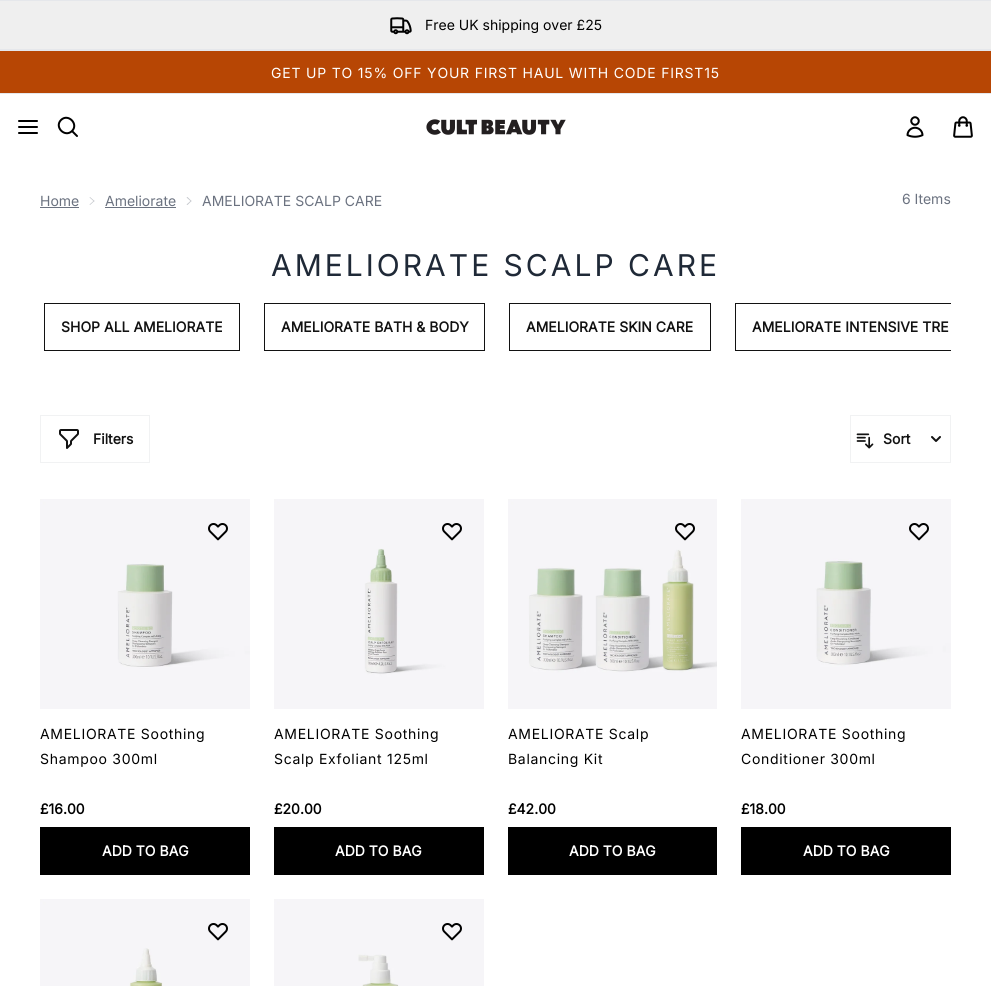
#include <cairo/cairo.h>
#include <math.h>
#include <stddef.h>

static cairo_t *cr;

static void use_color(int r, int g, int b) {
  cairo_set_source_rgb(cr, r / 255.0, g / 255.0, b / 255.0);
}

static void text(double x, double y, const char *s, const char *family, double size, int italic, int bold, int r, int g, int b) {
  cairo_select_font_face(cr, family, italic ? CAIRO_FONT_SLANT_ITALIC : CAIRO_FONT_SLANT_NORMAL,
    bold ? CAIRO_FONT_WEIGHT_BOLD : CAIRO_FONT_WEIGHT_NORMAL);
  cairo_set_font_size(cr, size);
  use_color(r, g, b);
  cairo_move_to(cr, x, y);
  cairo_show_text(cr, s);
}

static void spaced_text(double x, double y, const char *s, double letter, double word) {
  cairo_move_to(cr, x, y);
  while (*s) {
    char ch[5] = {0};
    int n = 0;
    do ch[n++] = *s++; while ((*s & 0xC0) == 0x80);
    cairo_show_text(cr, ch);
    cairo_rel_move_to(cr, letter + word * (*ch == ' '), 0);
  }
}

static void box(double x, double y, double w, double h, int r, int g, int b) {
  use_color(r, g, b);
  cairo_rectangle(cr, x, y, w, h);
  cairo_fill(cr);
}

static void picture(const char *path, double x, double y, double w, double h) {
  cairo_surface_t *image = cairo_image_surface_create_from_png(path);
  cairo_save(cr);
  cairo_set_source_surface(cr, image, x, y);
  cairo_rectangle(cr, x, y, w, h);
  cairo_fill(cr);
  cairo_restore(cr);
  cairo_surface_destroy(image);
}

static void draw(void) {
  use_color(255, 255, 255);
  cairo_paint(cr);
  box(0, 1, 991, 48, 239, 239, 239);
  box(0, 0, 991, 1, 229, 231, 235);
  picture("img_01.png", 390, 17, 22, 18);
  box(0, 51, 991, 42, 183, 70, 4);
  box(0, 49, 991, 2, 229, 231, 235);
  box(0, 93, 991, 1, 229, 231, 235);
  cairo_new_path(cr);
  cairo_move_to(cr, 19, 127);
  cairo_line_to(cr, 37, 127);
  cairo_move_to(cr, 19, 121);
  cairo_line_to(cr, 37, 121);
  cairo_move_to(cr, 19, 133);
  cairo_line_to(cr, 37, 133);
  cairo_move_to(cr, 77, 136);
  cairo_line_to(cr, 72, 131);
  cairo_move_to(cr, 72, 131);
  cairo_curve_to(cr, 79, 124, 68, 113, 61, 120);
  cairo_curve_to(cr, 54, 127, 65, 138, 72, 131);
  cairo_close_path(cr);
  use_color(0, 0, 0);
  cairo_set_line_cap(cr, CAIRO_LINE_CAP_ROUND);
  cairo_set_line_join(cr, CAIRO_LINE_JOIN_ROUND);
  cairo_stroke(cr);
  picture("img_02.png", 426, 119, 140, 16);
  picture("img_03.png", 906, 116, 18, 22);
  picture("img_04.png", 953, 116, 20, 22);
  box(40, 207, 39, 1, 107, 114, 128);
  use_color(196, 199, 204);
  cairo_new_path(cr);
  cairo_move_to(cr, 90, 197);
  cairo_line_to(cr, 94.5, 201);
  cairo_line_to(cr, 94, 201.5);
  cairo_line_to(cr, 89.5, 197.5);
  cairo_close_path(cr);
  cairo_fill(cr);
  cairo_new_path(cr);
  cairo_move_to(cr, 94, 200.5);
  cairo_line_to(cr, 94.5, 201);
  cairo_line_to(cr, 90, 205);
  cairo_line_to(cr, 89.5, 204.5);
  cairo_close_path(cr);
  cairo_fill(cr);
  box(105, 207, 71, 1, 107, 114, 128);
  use_color(196, 199, 204);
  cairo_new_path(cr);
  cairo_move_to(cr, 187.5, 197);
  cairo_line_to(cr, 191.5, 201);
  cairo_line_to(cr, 191, 201.5);
  cairo_line_to(cr, 186.5, 197.5);
  cairo_close_path(cr);
  cairo_fill(cr);
  cairo_new_path(cr);
  cairo_move_to(cr, 191, 200.5);
  cairo_line_to(cr, 191.5, 201);
  cairo_line_to(cr, 187.5, 205);
  cairo_line_to(cr, 186.5, 204.5);
  cairo_close_path(cr);
  cairo_fill(cr);
  cairo_rectangle(cr, 44.5, 303.5, 195, 47);
  use_color(18, 18, 18);
  cairo_set_line_width(cr, 1);
  cairo_set_line_cap(cr, CAIRO_LINE_CAP_BUTT);
  cairo_set_line_join(cr, CAIRO_LINE_JOIN_MITER);
  cairo_stroke(cr);
  cairo_rectangle(cr, 264.5, 303.5, 220, 47);
  cairo_stroke(cr);
  cairo_rectangle(cr, 509.5, 303.5, 201, 47);
  cairo_stroke(cr);
  cairo_save(cr);
  cairo_rectangle(cr, 40, 299, 911, 56);
  cairo_clip(cr);
  cairo_rectangle(cr, 735.5, 303.5, 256, 47);
  cairo_stroke(cr);
  cairo_restore(cr);
  cairo_rectangle(cr, 40.5, 415.5, 109, 47);
  use_color(241, 242, 243);
  cairo_stroke(cr);
  picture("img_05.png", 59, 429, 20, 20);
  cairo_rectangle(cr, 850.5, 415.5, 100, 47);
  cairo_stroke(cr);
  picture("img_06.png", 856, 433, 18, 16);
  picture("img_07.png", 931, 436, 10, 6);
  picture("img_08.png", 40, 499, 210, 210);
  picture("img_09.png", 208, 523, 20, 18);
  box(40, 827, 210, 48, 0, 0, 0);
  picture("img_10.png", 274, 499, 210, 210);
  picture("img_09.png", 442, 523, 20, 18);
  box(274, 827, 210, 48, 0, 0, 0);
  picture("img_11.png", 508, 499, 209, 210);
  picture("img_09.png", 675, 523, 20, 18);
  box(508, 827, 209, 48, 0, 0, 0);
  picture("img_12.png", 741, 499, 210, 210);
  picture("img_09.png", 909, 523, 20, 18);
  box(741, 827, 210, 48, 0, 0, 0);
  picture("img_13.png", 40, 899, 210, 87);
  picture("img_09.png", 208, 923, 20, 18);
  picture("img_14.png", 274, 899, 210, 87);
  picture("img_09.png", 442, 923, 20, 18);
  text(425, 30, "Free UK shipping over £25", "Inter", 14, 0, 0, 0, 0, 0);
  use_color(255, 255, 255);
  spaced_text(271, 78, "GET UP TO 15% OFF YOUR FIRST HAUL WITH CODE FIRST15", 0.8, 0);
  text(40, 206, "Home", "Inter", 14, 0, 0, 107, 114, 128);
  text(105, 206, "Ameliorate", "Inter", 14, 0, 0, 107, 114, 128);
  text(202, 206, "AMELIORATE SCALP CARE", "Inter", 14, 0, 0, 107, 114, 128);
  text(902, 204, "6 Items", "Inter", 14, 0, 0, 107, 114, 128);
  cairo_set_font_size(cr, 30);
  use_color(31, 41, 55);
  spaced_text(271, 276, "AMELIORATE SCALP CARE", 3, 0);
  text(61, 332, "SHOP ALL AMELIORATE", "Inter", 14, 0, 1, 18, 18, 18);
  text(281, 332, "AMELIORATE BATH & BODY", "Inter", 14, 0, 1, 18, 18, 18);
  text(526, 332, "AMELIORATE SKIN CARE", "Inter", 14, 0, 1, 18, 18, 18);
  text(752, 332, "AMELIORATE INTENSIVE TRE", "Inter", 14, 0, 1, 18, 18, 18);
  text(93, 444, "Filters", "Inter", 14, 0, 1, 18, 18, 18);
  text(883, 444, "Sort", "Inter", 14, 0, 1, 18, 18, 18);
  cairo_select_font_face(cr, "Inter", CAIRO_FONT_SLANT_NORMAL, CAIRO_FONT_WEIGHT_NORMAL);
  use_color(0, 0, 0);
  spaced_text(40, 739, "AMELIORATE Soothing", 0.7, 0);
  spaced_text(40, 764, "Shampoo 300ml", 0.7, 0);
  text(40, 814, "£16.00", "Inter", 14, 0, 1, 0, 0, 0);
  text(102, 856, "ADD TO BAG", "Inter", 14, 0, 1, 255, 255, 255);
  cairo_select_font_face(cr, "Inter", CAIRO_FONT_SLANT_NORMAL, CAIRO_FONT_WEIGHT_NORMAL);
  use_color(0, 0, 0);
  spaced_text(274, 739, "AMELIORATE Soothing", 0.7, 0);
  spaced_text(274, 764, "Scalp Exfoliant 125ml", 0.7, 0);
  text(274, 814, "£20.00", "Inter", 14, 0, 1, 0, 0, 0);
  text(335, 856, "ADD TO BAG", "Inter", 14, 0, 1, 255, 255, 255);
  cairo_select_font_face(cr, "Inter", CAIRO_FONT_SLANT_NORMAL, CAIRO_FONT_WEIGHT_NORMAL);
  use_color(0, 0, 0);
  spaced_text(508, 739, "AMELIORATE Scalp", 0.7, 0);
  spaced_text(508, 764, "Balancing Kit", 0.7, 0);
  text(508, 814, "£42.00", "Inter", 14, 0, 1, 0, 0, 0);
  text(569, 856, "ADD TO BAG", "Inter", 14, 0, 1, 255, 255, 255);
  cairo_select_font_face(cr, "Inter", CAIRO_FONT_SLANT_NORMAL, CAIRO_FONT_WEIGHT_NORMAL);
  use_color(0, 0, 0);
  spaced_text(741, 739, "AMELIORATE Soothing", 0.7, 0);
  spaced_text(741, 764, "Conditioner 300ml", 0.7, 0);
  text(741, 814, "£18.00", "Inter", 14, 0, 1, 0, 0, 0);
  text(803, 856, "ADD TO BAG", "Inter", 14, 0, 1, 255, 255, 255);
}

int main(void) {
  cairo_surface_t *surface = cairo_image_surface_create(CAIRO_FORMAT_RGB24, 991, 986);
  cr = cairo_create(surface);
  cairo_font_options_t *options = cairo_font_options_create();
  cairo_font_options_set_hint_metrics(options, CAIRO_HINT_METRICS_OFF);
  cairo_font_options_set_hint_style(options, CAIRO_HINT_STYLE_NONE);
  cairo_set_font_options(cr, options);
  cairo_set_miter_limit(cr, 4);
  draw();
  cairo_surface_write_to_png(surface, "out.png");
  cairo_font_options_destroy(options);
  cairo_destroy(cr);
  cairo_surface_destroy(surface);
  return 0;
}
